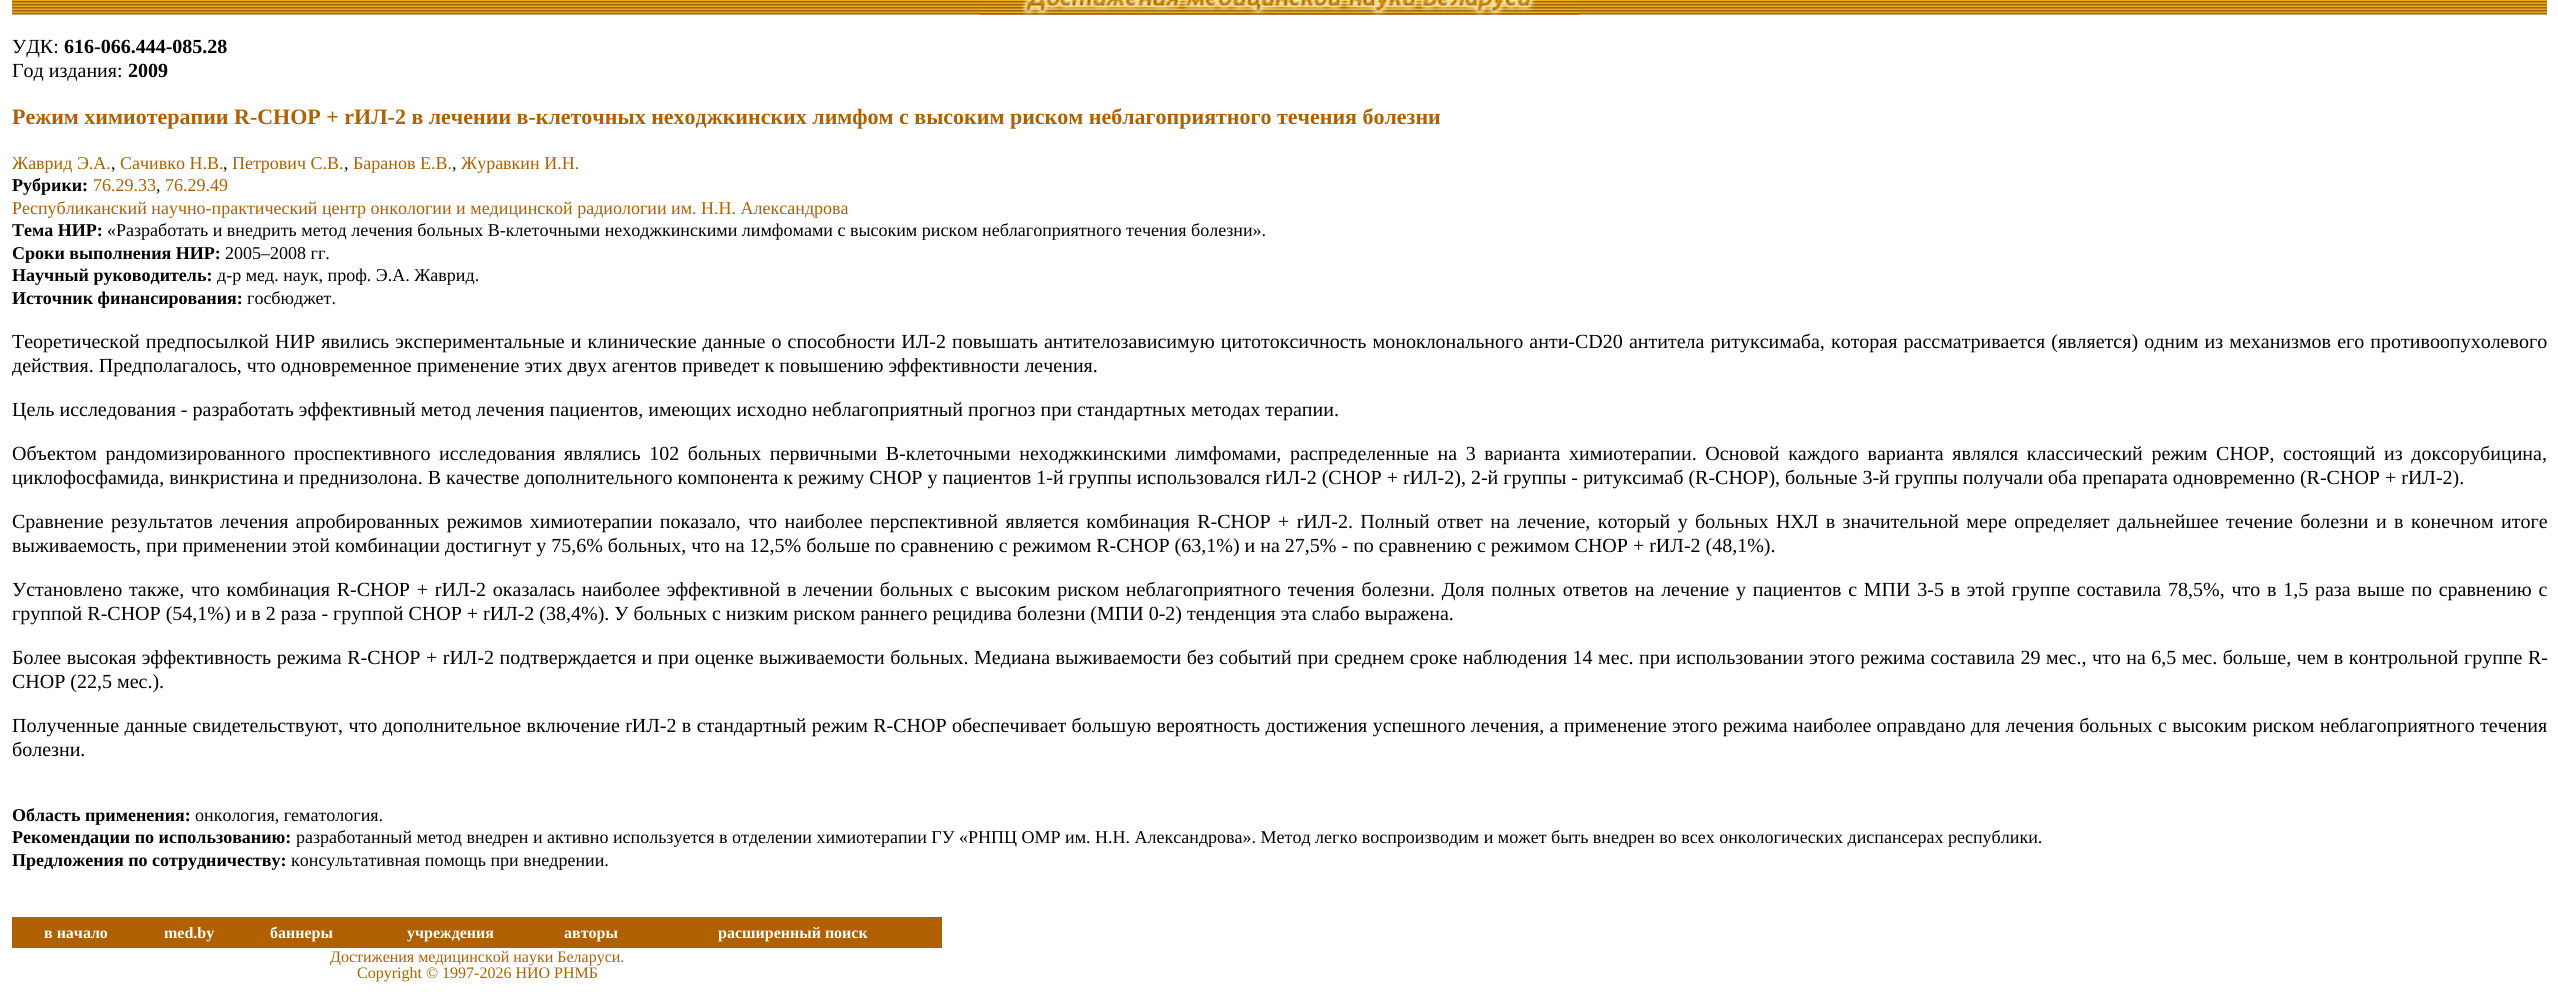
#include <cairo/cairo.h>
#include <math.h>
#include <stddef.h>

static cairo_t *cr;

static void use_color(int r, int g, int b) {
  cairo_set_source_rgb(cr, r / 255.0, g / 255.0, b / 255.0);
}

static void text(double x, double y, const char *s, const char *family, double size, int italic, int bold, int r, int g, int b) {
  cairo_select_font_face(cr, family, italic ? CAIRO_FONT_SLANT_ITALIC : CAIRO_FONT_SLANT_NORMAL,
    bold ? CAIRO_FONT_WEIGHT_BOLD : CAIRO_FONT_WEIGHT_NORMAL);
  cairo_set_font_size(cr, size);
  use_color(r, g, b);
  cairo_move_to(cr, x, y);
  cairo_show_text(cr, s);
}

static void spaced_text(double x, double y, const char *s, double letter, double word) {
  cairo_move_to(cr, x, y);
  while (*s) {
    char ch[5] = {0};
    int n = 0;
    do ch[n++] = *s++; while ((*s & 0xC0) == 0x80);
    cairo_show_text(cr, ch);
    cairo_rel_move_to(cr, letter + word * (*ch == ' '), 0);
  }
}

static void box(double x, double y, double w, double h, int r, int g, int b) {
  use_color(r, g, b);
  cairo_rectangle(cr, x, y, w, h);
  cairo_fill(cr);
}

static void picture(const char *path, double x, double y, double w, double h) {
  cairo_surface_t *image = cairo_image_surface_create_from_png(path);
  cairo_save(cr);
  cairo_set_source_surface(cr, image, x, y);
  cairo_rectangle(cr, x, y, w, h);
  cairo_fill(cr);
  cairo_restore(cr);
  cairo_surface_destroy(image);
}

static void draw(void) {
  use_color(255, 255, 255);
  cairo_paint(cr);
  picture("img_01.png", 12, 0, 2535, 15);
  picture("img_02.png", 979, 0, 601, 15);
  box(12, 917, 930, 31, 176, 96, 0);
  text(12, 53, "УДК:", "Liberation Serif", 20, 0, 0, 0, 0, 0);
  text(64, 53, "616-066.444-085.28", "Liberation Serif", 20, 0, 1, 0, 0, 0);
  text(12, 77, "Год издания:", "Liberation Serif", 20, 0, 0, 0, 0, 0);
  text(128, 77, "2009", "Liberation Serif", 20, 0, 1, 0, 0, 0);
  text(12, 124, "Режим химиотерапии R-CHOP + rИЛ-2 в лечении в-клеточных неходжкинских лимфом с высоким риском неблагоприятного течения болезни", "Liberation Serif", 22, 0, 1, 176, 96, 0);
  text(12, 169, "Жаврид Э.А.", "Liberation Serif", 18, 0, 0, 176, 96, 0);
  text(111, 169, ",", "Liberation Serif", 18, 0, 0, 0, 0, 0);
  text(120, 169, "Сачивко Н.В.", "Liberation Serif", 18, 0, 0, 176, 96, 0);
  text(223, 169, ",", "Liberation Serif", 18, 0, 0, 0, 0, 0);
  text(232, 169, "Петрович С.В.", "Liberation Serif", 18, 0, 0, 176, 96, 0);
  text(344, 169, ",", "Liberation Serif", 18, 0, 0, 0, 0, 0);
  text(353, 169, "Баранов Е.В.", "Liberation Serif", 18, 0, 0, 176, 96, 0);
  text(452, 169, ",", "Liberation Serif", 18, 0, 0, 0, 0, 0);
  text(461, 169, "Журавкин И.Н.", "Liberation Serif", 18, 0, 0, 176, 96, 0);
  text(12, 191, "Рубрики:", "Liberation Serif", 18, 0, 1, 0, 0, 0);
  text(93, 191, "76.29.33", "Liberation Serif", 18, 0, 0, 176, 96, 0);
  text(156, 191, ",", "Liberation Serif", 18, 0, 0, 0, 0, 0);
  text(165, 191, "76.29.49", "Liberation Serif", 18, 0, 0, 176, 96, 0);
  text(12, 214, "Республиканский научно-практический центр онкологии и медицинской радиологии им. Н.Н. Александрова", "Liberation Serif", 18, 0, 0, 176, 96, 0);
  text(12, 236, "Тема НИР:", "Liberation Serif", 18, 0, 1, 0, 0, 0);
  text(107, 236, "«Разработать и внедрить метод лечения больных В-клеточными неходжкинскими лимфомами с высоким риском неблагоприятного течения болезни».", "Liberation Serif", 18, 0, 0, 0, 0, 0);
  text(12, 259, "Сроки выполнения НИР:", "Liberation Serif", 18, 0, 1, 0, 0, 0);
  text(225, 259, "2005–2008 гг.", "Liberation Serif", 18, 0, 0, 0, 0, 0);
  text(12, 281, "Научный руководитель:", "Liberation Serif", 18, 0, 1, 0, 0, 0);
  text(217, 281, "д-р мед. наук, проф. Э.А. Жаврид.", "Liberation Serif", 18, 0, 0, 0, 0, 0);
  text(12, 304, "Источник финансирования:", "Liberation Serif", 18, 0, 1, 0, 0, 0);
  text(247, 304, "госбюджет.", "Liberation Serif", 18, 0, 0, 0, 0, 0);
  cairo_set_font_size(cr, 20);
  spaced_text(12, 348, "Теоретической предпосылкой НИР явились экспериментальные и клинические данные о способности ИЛ-2 повышать антителозависимую цитотоксичность моноклонального анти-CD20 антитела ритуксимаба, которая рассматривается (является) одним из механизмов его противоопухолевого", 0, 1.1);
  text(12, 372, "действия. Предполагалось, что одновременное применение этих двух агентов приведет к повышению эффективности лечения.", "Liberation Serif", 20, 0, 0, 0, 0, 0);
  text(12, 416, "Цель исследования - разработать эффективный метод лечения пациентов, имеющих исходно неблагоприятный прогноз при стандартных методах терапии.", "Liberation Serif", 20, 0, 0, 0, 0, 0);
  spaced_text(12, 460, "Объектом рандомизированного проспективного исследования являлись 102 больных первичными В-клеточными неходжкинскими лимфомами, распределенные на 3 варианта химиотерапии. Основой каждого варианта являлся классический режим CHOP, состоящий из доксорубицина,", 0, 3.6);
  text(12, 484, "циклофосфамида, винкристина и преднизолона. В качестве дополнительного компонента к режиму CHOP у пациентов 1-й группы использовался rИЛ-2 (CHOP + rИЛ-2), 2-й группы - ритуксимаб (R-CHOP), больные 3-й группы получали оба препарата одновременно (R-CHOP + rИЛ-2).", "Liberation Serif", 20, 0, 0, 0, 0, 0);
  spaced_text(12, 528, "Сравнение результатов лечения апробированных режимов химиотерапии показало, что наиболее перспективной является комбинация R-CHOP + rИЛ-2. Полный ответ на лечение, который у больных НХЛ в значительной мере определяет дальнейшее течение болезни и в конечном итоге", 0, 2.4);
  text(12, 552, "выживаемость, при применении этой комбинации достигнут у 75,6% больных, что на 12,5% больше по сравнению с режимом R-CHOP (63,1%) и на 27,5% - по сравнению с режимом CHOP + rИЛ-2 (48,1%).", "Liberation Serif", 20, 0, 0, 0, 0, 0);
  spaced_text(12, 596, "Установлено также, что комбинация R-CHOP + rИЛ-2 оказалась наиболее эффективной в лечении больных с высоким риском неблагоприятного течения болезни. Доля полных ответов на лечение у пациентов с МПИ 3-5 в этой группе составила 78,5%, что в 1,5 раза выше по сравнению с", 0, 1.75);
  text(12, 620, "группой R-CHOP (54,1%) и в 2 раза - группой CHOP + rИЛ-2 (38,4%). У больных с низким риском раннего рецидива болезни (МПИ 0-2) тенденция эта слабо выражена.", "Liberation Serif", 20, 0, 0, 0, 0, 0);
  spaced_text(12, 664, "Более высокая эффективность режима R-CHOP + rИЛ-2 подтверждается и при оценке выживаемости больных. Медиана выживаемости без событий при среднем сроке наблюдения 14 мес. при использовании этого режима составила 29 мес., что на 6,5 мес. больше, чем в контрольной группе R-", 0, 0.5);
  text(12, 688, "CHOP (22,5 мес.).", "Liberation Serif", 20, 0, 0, 0, 0, 0);
  spaced_text(12, 732, "Полученные данные свидетельствуют, что дополнительное включение rИЛ-2 в стандартный режим R-CHOP обеспечивает большую вероятность достижения успешного лечения, а применение этого режима наиболее оправдано для лечения больных с высоким риском неблагоприятного течения", 0, 0.35);
  text(12, 756, "болезни.", "Liberation Serif", 20, 0, 0, 0, 0, 0);
  text(12, 821, "Область применения:", "Liberation Serif", 18, 0, 1, 0, 0, 0);
  text(195, 821, "онкология, гематология.", "Liberation Serif", 18, 0, 0, 0, 0, 0);
  text(12, 843, "Рекомендации по использованию:", "Liberation Serif", 18, 0, 1, 0, 0, 0);
  text(296, 843, "разработанный метод внедрен и активно используется в отделении химиотерапии ГУ «РНПЦ ОМР им. Н.Н. Александрова». Метод легко воспроизводим и может быть внедрен во всех онкологических диспансерах республики.", "Liberation Serif", 18, 0, 0, 0, 0, 0);
  text(12, 866, "Предложения по сотрудничеству:", "Liberation Serif", 18, 0, 1, 0, 0, 0);
  text(291, 866, "консультативная помощь при внедрении.", "Liberation Serif", 18, 0, 0, 0, 0, 0);
  text(44, 938, "в начало", "Liberation Serif", 16, 0, 1, 255, 255, 255);
  text(164, 938, "med.by", "Liberation Serif", 16, 0, 1, 255, 255, 255);
  text(270, 938, "баннеры", "Liberation Serif", 16, 0, 1, 255, 255, 255);
  text(407, 938, "учреждения", "Liberation Serif", 16, 0, 1, 255, 255, 255);
  text(564, 938, "авторы", "Liberation Serif", 16, 0, 1, 255, 255, 255);
  text(718, 938, "расширенный поиск", "Liberation Serif", 16, 0, 1, 255, 255, 255);
  text(330, 962, "Достижения медицинской науки Беларуси.", "Liberation Serif", 16, 0, 0, 176, 96, 0);
  text(357, 978, "Copyright © 1997-2026 НИО РНМБ", "Liberation Serif", 16, 0, 0, 176, 96, 0);
}

int main(void) {
  cairo_surface_t *surface = cairo_image_surface_create(CAIRO_FORMAT_RGB24, 2558, 992);
  cr = cairo_create(surface);
  cairo_font_options_t *options = cairo_font_options_create();
  cairo_font_options_set_hint_metrics(options, CAIRO_HINT_METRICS_OFF);
  cairo_font_options_set_hint_style(options, CAIRO_HINT_STYLE_NONE);
  cairo_set_font_options(cr, options);
  cairo_set_miter_limit(cr, 4);
  draw();
  cairo_surface_write_to_png(surface, "out.png");
  cairo_font_options_destroy(options);
  cairo_destroy(cr);
  cairo_surface_destroy(surface);
  return 0;
}
